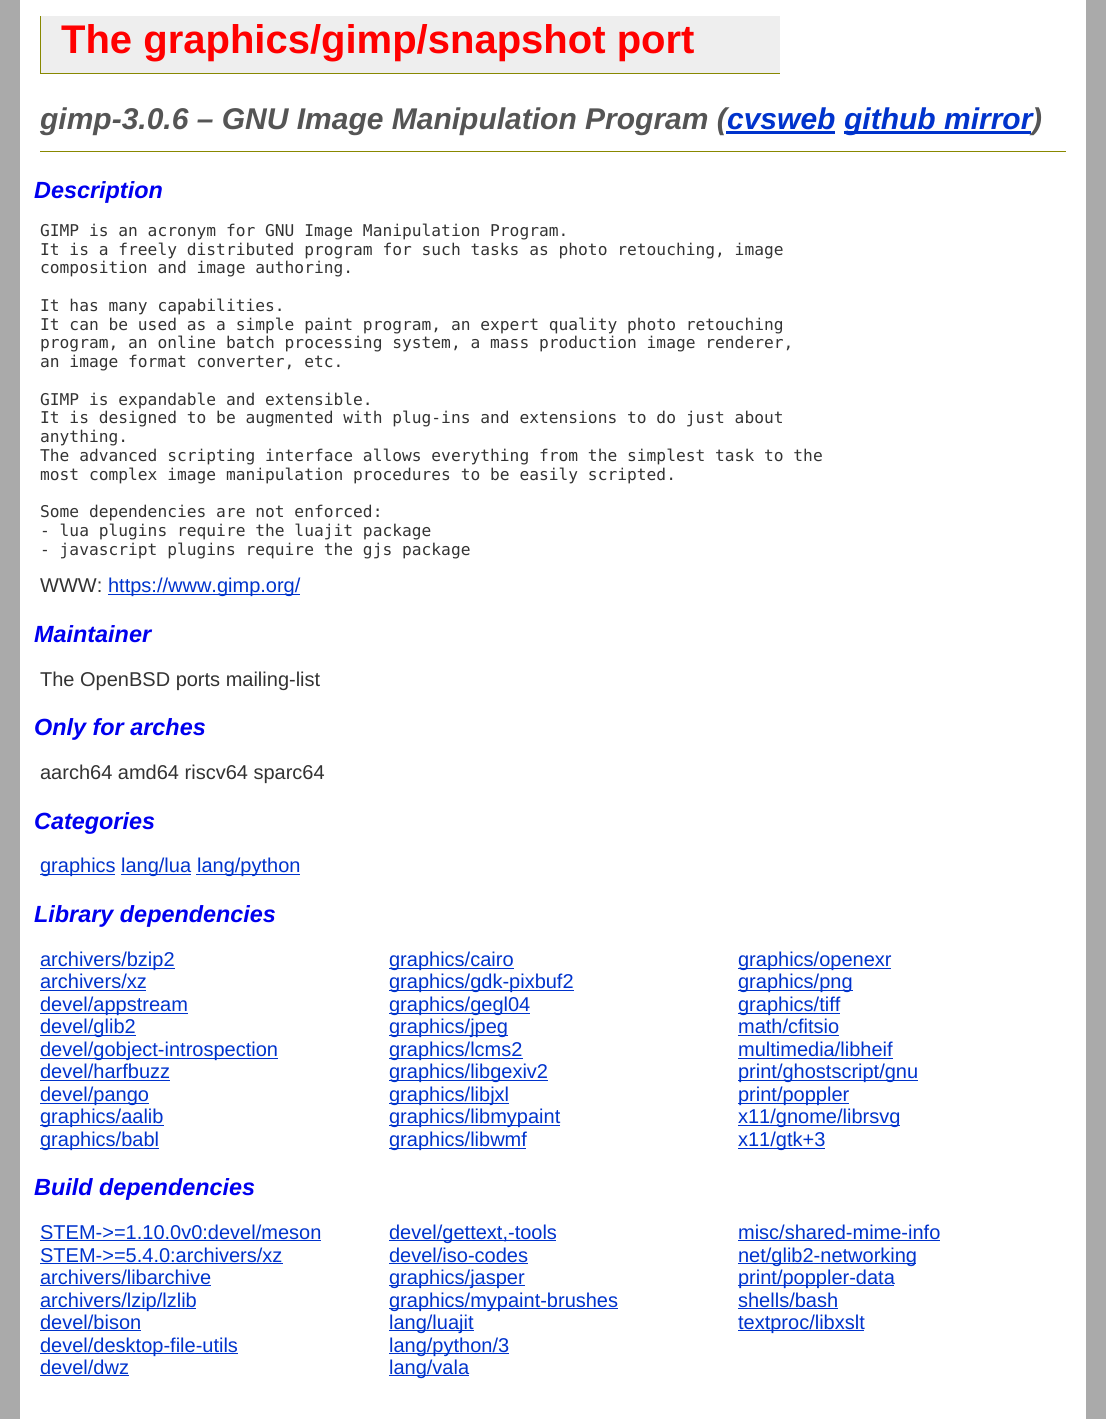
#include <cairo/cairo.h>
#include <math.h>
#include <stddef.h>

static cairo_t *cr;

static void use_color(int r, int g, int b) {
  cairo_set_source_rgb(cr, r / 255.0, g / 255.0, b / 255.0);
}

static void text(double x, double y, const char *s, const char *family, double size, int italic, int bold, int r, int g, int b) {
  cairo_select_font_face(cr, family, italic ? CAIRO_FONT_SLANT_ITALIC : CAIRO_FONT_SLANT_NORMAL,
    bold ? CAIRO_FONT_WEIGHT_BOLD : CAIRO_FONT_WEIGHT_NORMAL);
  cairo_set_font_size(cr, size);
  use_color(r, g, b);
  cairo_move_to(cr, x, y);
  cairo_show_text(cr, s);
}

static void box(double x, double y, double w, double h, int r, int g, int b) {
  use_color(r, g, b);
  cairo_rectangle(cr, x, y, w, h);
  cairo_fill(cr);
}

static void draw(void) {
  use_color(255, 255, 255);
  cairo_paint(cr);
  cairo_rectangle(cr, 10, -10, 1086, 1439);
  use_color(170, 170, 170);
  cairo_set_line_width(cr, 20);
  cairo_stroke(cr);
  box(41, 16, 739, 57, 238, 238, 238);
  box(40, 73, 740, 1, 136, 136, 0);
  box(40, 16, 1, 58, 136, 136, 0);
  box(40, 151, 1026, 1, 136, 136, 0);
  box(844, 131, 187, 3, 0, 51, 204);
  box(108, 594, 192, 1, 0, 51, 204);
  box(40, 874, 75, 1, 0, 51, 204);
  box(121, 874, 70, 1, 0, 51, 204);
  box(196, 874, 104, 1, 0, 51, 204);
  box(40, 968, 135, 1, 0, 51, 204);
  box(389, 968, 125, 1, 0, 51, 204);
  box(738, 968, 153, 1, 0, 51, 204);
  box(40, 990, 106, 1, 0, 51, 204);
  box(389, 990, 185, 1, 0, 51, 204);
  box(738, 990, 115, 1, 0, 51, 204);
  box(40, 1013, 148, 1, 0, 51, 204);
  box(389, 1013, 141, 1, 0, 51, 204);
  box(738, 1013, 102, 1, 0, 51, 204);
  box(40, 1035, 96, 1, 0, 51, 204);
  box(389, 1035, 119, 1, 0, 51, 204);
  box(738, 1035, 101, 1, 0, 51, 204);
  box(40, 1058, 238, 1, 0, 51, 204);
  box(389, 1058, 134, 1, 0, 51, 204);
  box(738, 1058, 155, 1, 0, 51, 204);
  box(40, 1080, 130, 1, 0, 51, 204);
  box(389, 1080, 159, 1, 0, 51, 204);
  box(738, 1080, 180, 1, 0, 51, 204);
  box(40, 1103, 109, 1, 0, 51, 204);
  box(389, 1103, 120, 1, 0, 51, 204);
  box(738, 1103, 111, 1, 0, 51, 204);
  box(40, 1125, 124, 1, 0, 51, 204);
  box(389, 1125, 171, 1, 0, 51, 204);
  box(738, 1125, 162, 1, 0, 51, 204);
  box(40, 1148, 119, 1, 0, 51, 204);
  box(389, 1148, 137, 1, 0, 51, 204);
  box(738, 1148, 87, 1, 0, 51, 204);
  box(40, 1240, 281, 1, 0, 51, 204);
  box(389, 1240, 167, 1, 0, 51, 204);
  box(738, 1240, 202, 1, 0, 51, 204);
  box(40, 1263, 243, 1, 0, 51, 204);
  box(389, 1263, 139, 1, 0, 51, 204);
  box(738, 1263, 178, 1, 0, 51, 204);
  box(40, 1285, 171, 1, 0, 51, 204);
  box(389, 1285, 136, 1, 0, 51, 204);
  box(738, 1285, 156, 1, 0, 51, 204);
  box(40, 1308, 156, 1, 0, 51, 204);
  box(389, 1308, 229, 1, 0, 51, 204);
  box(738, 1308, 100, 1, 0, 51, 204);
  box(40, 1330, 101, 1, 0, 51, 204);
  box(389, 1330, 85, 1, 0, 51, 204);
  box(738, 1330, 126, 1, 0, 51, 204);
  box(40, 1353, 198, 1, 0, 51, 204);
  box(389, 1353, 120, 1, 0, 51, 204);
  box(40, 1375, 89, 1, 0, 51, 204);
  box(389, 1375, 80, 1, 0, 51, 204);
  text(61, 53, "The graphics/gimp/snapshot port", "Liberation Sans", 40, 0, 1, 255, 0, 0);
  text(40, 129, "gimp-3.0.6 – GNU Image Manipulation Program (", "Liberation Sans", 30, 1, 1, 85, 85, 85);
  text(727, 129, "cvsweb", "Liberation Sans", 30, 1, 1, 0, 51, 204);
  box(726, 131, 109, 3, 0, 51, 204);
  text(844, 129, "github mirror", "Liberation Sans", 30, 1, 1, 0, 51, 204);
  text(1032, 129, ")", "Liberation Sans", 30, 1, 1, 85, 85, 85);
  text(34, 198, "Description", "Liberation Sans", 23.4, 1, 1, 0, 0, 238);
  text(40, 236, "GIMP is an acronym for GNU Image Manipulation Program.", "DejaVu Sans Mono", 16.25, 0, 0, 51, 51, 51);
  text(40, 255, "It is a freely distributed program for such tasks as photo retouching, image", "DejaVu Sans Mono", 16.25, 0, 0, 51, 51, 51);
  text(40, 273, "composition and image authoring.", "DejaVu Sans Mono", 16.25, 0, 0, 51, 51, 51);
  text(40, 311, "It has many capabilities.", "DejaVu Sans Mono", 16.25, 0, 0, 51, 51, 51);
  text(40, 330, "It can be used as a simple paint program, an expert quality photo retouching", "DejaVu Sans Mono", 16.25, 0, 0, 51, 51, 51);
  text(40, 348, "program, an online batch processing system, a mass production image renderer,", "DejaVu Sans Mono", 16.25, 0, 0, 51, 51, 51);
  text(40, 367, "an image format converter, etc.", "DejaVu Sans Mono", 16.25, 0, 0, 51, 51, 51);
  text(40, 405, "GIMP is expandable and extensible.", "DejaVu Sans Mono", 16.25, 0, 0, 51, 51, 51);
  text(40, 423, "It is designed to be augmented with plug-ins and extensions to do just about", "DejaVu Sans Mono", 16.25, 0, 0, 51, 51, 51);
  text(40, 442, "anything.", "DejaVu Sans Mono", 16.25, 0, 0, 51, 51, 51);
  text(40, 461, "The advanced scripting interface allows everything from the simplest task to the", "DejaVu Sans Mono", 16.25, 0, 0, 51, 51, 51);
  text(40, 480, "most complex image manipulation procedures to be easily scripted.", "DejaVu Sans Mono", 16.25, 0, 0, 51, 51, 51);
  text(40, 517, "Some dependencies are not enforced:", "DejaVu Sans Mono", 16.25, 0, 0, 51, 51, 51);
  text(40, 536, "- lua plugins require the luajit package", "DejaVu Sans Mono", 16.25, 0, 0, 51, 51, 51);
  text(40, 555, "- javascript plugins require the gjs package", "DejaVu Sans Mono", 16.25, 0, 0, 51, 51, 51);
  text(40, 592, "WWW:", "Liberation Sans", 20, 0, 0, 51, 51, 51);
  text(108, 592, "https://www.gimp.org/", "Liberation Sans", 20, 0, 0, 0, 51, 204);
  text(34, 642, "Maintainer", "Liberation Sans", 23.4, 1, 1, 0, 0, 238);
  text(40, 686, "The OpenBSD ports mailing-list", "Liberation Sans", 20, 0, 0, 51, 51, 51);
  text(34, 735, "Only for arches", "Liberation Sans", 23.4, 1, 1, 0, 0, 238);
  text(40, 779, "aarch64 amd64 riscv64 sparc64", "Liberation Sans", 20, 0, 0, 51, 51, 51);
  text(34, 829, "Categories", "Liberation Sans", 23.4, 1, 1, 0, 0, 238);
  text(40, 872, "graphics", "Liberation Sans", 20, 0, 0, 0, 51, 204);
  text(121, 872, "lang/lua", "Liberation Sans", 20, 0, 0, 0, 51, 204);
  text(197, 872, "lang/python", "Liberation Sans", 20, 0, 0, 0, 51, 204);
  text(34, 922, "Library dependencies", "Liberation Sans", 23.4, 1, 1, 0, 0, 238);
  text(40, 966, "archivers/bzip2", "Liberation Sans", 20, 0, 0, 0, 51, 204);
  text(389, 966, "graphics/cairo", "Liberation Sans", 20, 0, 0, 0, 51, 204);
  text(738, 966, "graphics/openexr", "Liberation Sans", 20, 0, 0, 0, 51, 204);
  text(40, 988, "archivers/xz", "Liberation Sans", 20, 0, 0, 0, 51, 204);
  text(389, 988, "graphics/gdk-pixbuf2", "Liberation Sans", 20, 0, 0, 0, 51, 204);
  text(738, 988, "graphics/png", "Liberation Sans", 20, 0, 0, 0, 51, 204);
  text(40, 1011, "devel/appstream", "Liberation Sans", 20, 0, 0, 0, 51, 204);
  text(389, 1011, "graphics/gegl04", "Liberation Sans", 20, 0, 0, 0, 51, 204);
  text(738, 1011, "graphics/tiff", "Liberation Sans", 20, 0, 0, 0, 51, 204);
  text(40, 1033, "devel/glib2", "Liberation Sans", 20, 0, 0, 0, 51, 204);
  text(389, 1033, "graphics/jpeg", "Liberation Sans", 20, 0, 0, 0, 51, 204);
  text(738, 1033, "math/cfitsio", "Liberation Sans", 20, 0, 0, 0, 51, 204);
  text(40, 1056, "devel/gobject-introspection", "Liberation Sans", 20, 0, 0, 0, 51, 204);
  text(389, 1056, "graphics/lcms2", "Liberation Sans", 20, 0, 0, 0, 51, 204);
  text(738, 1056, "multimedia/libheif", "Liberation Sans", 20, 0, 0, 0, 51, 204);
  text(40, 1078, "devel/harfbuzz", "Liberation Sans", 20, 0, 0, 0, 51, 204);
  text(389, 1078, "graphics/libgexiv2", "Liberation Sans", 20, 0, 0, 0, 51, 204);
  text(738, 1078, "print/ghostscript/gnu", "Liberation Sans", 20, 0, 0, 0, 51, 204);
  text(40, 1101, "devel/pango", "Liberation Sans", 20, 0, 0, 0, 51, 204);
  text(389, 1101, "graphics/libjxl", "Liberation Sans", 20, 0, 0, 0, 51, 204);
  text(738, 1101, "print/poppler", "Liberation Sans", 20, 0, 0, 0, 51, 204);
  text(40, 1123, "graphics/aalib", "Liberation Sans", 20, 0, 0, 0, 51, 204);
  text(389, 1123, "graphics/libmypaint", "Liberation Sans", 20, 0, 0, 0, 51, 204);
  text(738, 1123, "x11/gnome/librsvg", "Liberation Sans", 20, 0, 0, 0, 51, 204);
  text(40, 1146, "graphics/babl", "Liberation Sans", 20, 0, 0, 0, 51, 204);
  text(389, 1146, "graphics/libwmf", "Liberation Sans", 20, 0, 0, 0, 51, 204);
  text(738, 1146, "x11/gtk+3", "Liberation Sans", 20, 0, 0, 0, 51, 204);
  text(34, 1195, "Build dependencies", "Liberation Sans", 23.4, 1, 1, 0, 0, 238);
  text(40, 1239, "STEM->=1.10.0v0:devel/meson", "Liberation Sans", 20, 0, 0, 0, 51, 204);
  text(389, 1239, "devel/gettext,-tools", "Liberation Sans", 20, 0, 0, 0, 51, 204);
  text(738, 1239, "misc/shared-mime-info", "Liberation Sans", 20, 0, 0, 0, 51, 204);
  text(40, 1262, "STEM->=5.4.0:archivers/xz", "Liberation Sans", 20, 0, 0, 0, 51, 204);
  text(389, 1262, "devel/iso-codes", "Liberation Sans", 20, 0, 0, 0, 51, 204);
  text(738, 1262, "net/glib2-networking", "Liberation Sans", 20, 0, 0, 0, 51, 204);
  text(40, 1284, "archivers/libarchive", "Liberation Sans", 20, 0, 0, 0, 51, 204);
  text(389, 1284, "graphics/jasper", "Liberation Sans", 20, 0, 0, 0, 51, 204);
  text(738, 1284, "print/poppler-data", "Liberation Sans", 20, 0, 0, 0, 51, 204);
  text(40, 1307, "archivers/lzip/lzlib", "Liberation Sans", 20, 0, 0, 0, 51, 204);
  text(389, 1307, "graphics/mypaint-brushes", "Liberation Sans", 20, 0, 0, 0, 51, 204);
  text(738, 1307, "shells/bash", "Liberation Sans", 20, 0, 0, 0, 51, 204);
  text(40, 1329, "devel/bison", "Liberation Sans", 20, 0, 0, 0, 51, 204);
  text(389, 1329, "lang/luajit", "Liberation Sans", 20, 0, 0, 0, 51, 204);
  text(738, 1329, "textproc/libxslt", "Liberation Sans", 20, 0, 0, 0, 51, 204);
  text(40, 1352, "devel/desktop-file-utils", "Liberation Sans", 20, 0, 0, 0, 51, 204);
  text(389, 1352, "lang/python/3", "Liberation Sans", 20, 0, 0, 0, 51, 204);
  text(40, 1374, "devel/dwz", "Liberation Sans", 20, 0, 0, 0, 51, 204);
  text(389, 1374, "lang/vala", "Liberation Sans", 20, 0, 0, 0, 51, 204);
}

int main(void) {
  cairo_surface_t *surface = cairo_image_surface_create(CAIRO_FORMAT_RGB24, 1106, 1419);
  cr = cairo_create(surface);
  cairo_font_options_t *options = cairo_font_options_create();
  cairo_font_options_set_hint_metrics(options, CAIRO_HINT_METRICS_OFF);
  cairo_font_options_set_hint_style(options, CAIRO_HINT_STYLE_NONE);
  cairo_set_font_options(cr, options);
  cairo_set_miter_limit(cr, 4);
  draw();
  cairo_surface_write_to_png(surface, "out.png");
  cairo_font_options_destroy(options);
  cairo_destroy(cr);
  cairo_surface_destroy(surface);
  return 0;
}
